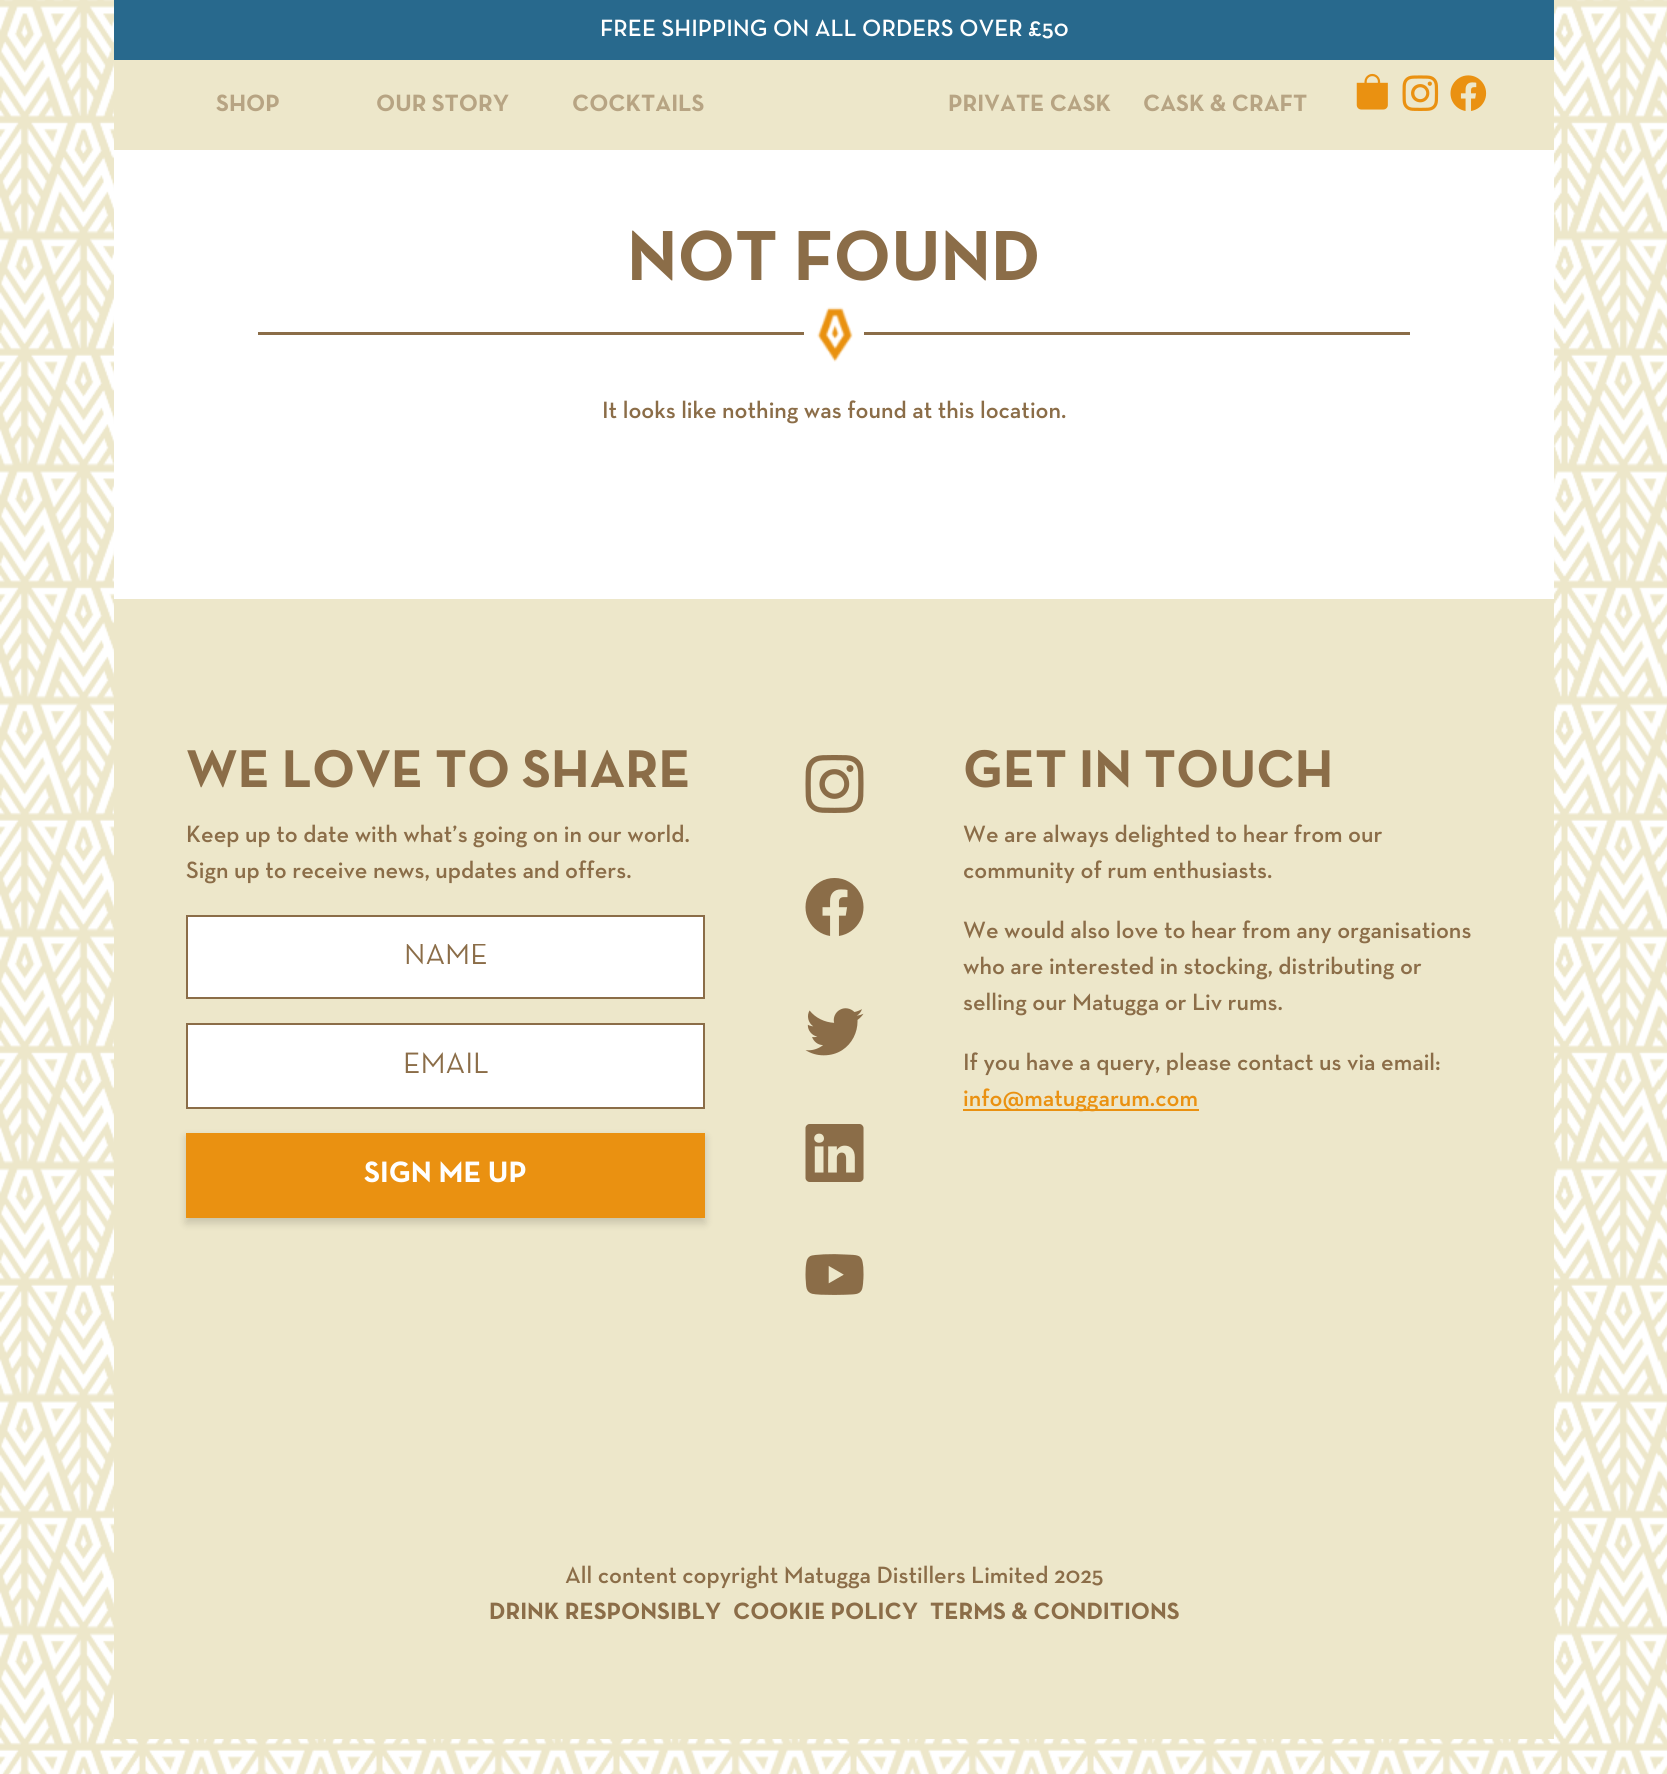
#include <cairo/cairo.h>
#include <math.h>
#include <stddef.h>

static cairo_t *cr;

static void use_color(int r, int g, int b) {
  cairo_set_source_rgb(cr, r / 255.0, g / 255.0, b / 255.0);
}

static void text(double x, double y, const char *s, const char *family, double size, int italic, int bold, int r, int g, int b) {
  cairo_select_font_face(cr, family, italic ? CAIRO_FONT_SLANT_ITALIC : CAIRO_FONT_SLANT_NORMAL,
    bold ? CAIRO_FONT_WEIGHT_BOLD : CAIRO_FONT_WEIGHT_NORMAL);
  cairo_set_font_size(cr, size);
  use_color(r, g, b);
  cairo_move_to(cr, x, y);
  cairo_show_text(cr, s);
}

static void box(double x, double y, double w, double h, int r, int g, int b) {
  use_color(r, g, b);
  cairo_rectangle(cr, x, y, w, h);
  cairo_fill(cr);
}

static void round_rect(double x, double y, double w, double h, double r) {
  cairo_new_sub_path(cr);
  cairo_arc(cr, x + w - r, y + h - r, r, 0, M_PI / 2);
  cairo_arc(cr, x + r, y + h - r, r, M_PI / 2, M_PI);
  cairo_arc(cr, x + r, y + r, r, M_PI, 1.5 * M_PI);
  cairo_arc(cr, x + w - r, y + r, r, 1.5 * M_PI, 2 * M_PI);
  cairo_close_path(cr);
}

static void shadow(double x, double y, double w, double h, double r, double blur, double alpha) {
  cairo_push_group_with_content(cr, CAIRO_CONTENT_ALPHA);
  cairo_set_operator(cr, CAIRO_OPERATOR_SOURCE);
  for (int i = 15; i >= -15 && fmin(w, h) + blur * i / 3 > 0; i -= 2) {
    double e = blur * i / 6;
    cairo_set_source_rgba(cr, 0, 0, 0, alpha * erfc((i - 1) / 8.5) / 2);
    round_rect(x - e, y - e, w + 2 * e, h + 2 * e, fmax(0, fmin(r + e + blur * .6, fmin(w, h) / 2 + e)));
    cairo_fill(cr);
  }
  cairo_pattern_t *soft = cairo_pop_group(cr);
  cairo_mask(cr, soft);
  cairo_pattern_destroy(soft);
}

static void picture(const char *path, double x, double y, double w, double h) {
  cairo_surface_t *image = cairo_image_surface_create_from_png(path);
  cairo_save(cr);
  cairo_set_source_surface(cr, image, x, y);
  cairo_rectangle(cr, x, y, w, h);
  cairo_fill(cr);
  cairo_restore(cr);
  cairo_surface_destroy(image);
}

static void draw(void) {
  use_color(255, 255, 255);
  cairo_paint(cr);
  picture("img_01.png", 0, 0, 1667, 1774);
  box(114, 0, 1440, 60, 40, 105, 141);
  box(114, 60, 1440, 90, 237, 231, 202);
  picture("img_02.png", 1356, 73, 32, 37);
  picture("img_03.png", 1402, 75, 37, 36);
  picture("img_04.png", 1450, 75, 37, 36);
  box(114, 150, 1440, 449, 255, 255, 255);
  box(258, 332, 1152, 3, 139, 109, 72);
  box(804, 332, 60, 3, 255, 255, 255);
  picture("img_05.png", 817, 307, 36, 55);
  box(114, 599, 1440, 1140, 237, 231, 202);
  use_color(255, 255, 255);
  cairo_rectangle(cr, 187, 916, 517, 82);
  cairo_fill_preserve(cr);
  use_color(139, 109, 72);
  cairo_stroke(cr);
  use_color(255, 255, 255);
  cairo_rectangle(cr, 187, 1024, 517, 84);
  cairo_fill_preserve(cr);
  use_color(139, 109, 72);
  cairo_stroke(cr);
  use_color(0, 0, 0);
  shadow(186, 1137, 519, 86, 0, 4.5, 0.16);
  box(186, 1133, 519, 85, 234, 145, 17);
  picture("img_06.png", 805, 755, 59, 58);
  picture("img_07.png", 805, 878, 59, 58);
  picture("img_08.png", 805, 1008, 59, 48);
  picture("img_09.png", 805, 1124, 59, 58);
  picture("img_10.png", 805, 1254, 59, 41);
  box(963, 1109, 236, 2, 234, 145, 17);
  text(600, 36, "FREE SHIPPING ON ALL ORDERS OVER £50", "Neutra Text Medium", 24, 0, 0, 255, 255, 255);
  text(216, 111, "SHOP", "Neutra Text", 24, 0, 1, 183, 164, 131);
  text(376, 111, "OUR STORY", "Neutra Text", 24, 0, 1, 183, 164, 131);
  text(572, 111, "COCKTAILS", "Neutra Text", 24, 0, 1, 183, 164, 131);
  text(948, 111, "PRIVATE CASK", "Neutra Text", 24, 0, 1, 183, 164, 131);
  text(1143, 111, "CASK & CRAFT", "Neutra Text", 24, 0, 1, 183, 164, 131);
  text(627, 280, "NOT FOUND", "Neutra Text", 72, 0, 1, 139, 109, 72);
  text(602, 418, "It looks like nothing was found at this location.", "Neutra Text Medium", 24, 0, 0, 139, 109, 72);
  text(186, 787, "WE LOVE TO SHARE", "Neutra Text", 54, 0, 1, 139, 109, 72);
  text(186, 842, "Keep up to date with what’s going on in our world.", "Neutra Text Medium", 24, 0, 0, 139, 109, 72);
  text(186, 878, "Sign up to receive news, updates and offers.", "Neutra Text Medium", 24, 0, 0, 139, 109, 72);
  cairo_save(cr);
  cairo_rectangle(cr, 212, 944, 468, 28);
  cairo_clip(cr);
  text(404, 964, "NAME", "Neutra Text", 30, 0, 0, 139, 109, 72);
  cairo_restore(cr);
  text(403, 1073, "EMAIL", "Neutra Text", 30, 0, 0, 139, 109, 72);
  text(364, 1182, "SIGN ME UP", "Neutra Text", 30, 0, 1, 255, 255, 255);
  text(963, 787, "GET IN TOUCH", "Neutra Text", 54, 0, 1, 139, 109, 72);
  text(963, 842, "We are always delighted to hear from our", "Neutra Text Medium", 24, 0, 0, 139, 109, 72);
  text(963, 878, "community of rum enthusiasts.", "Neutra Text Medium", 24, 0, 0, 139, 109, 72);
  text(963, 938, "We would also love to hear from any organisations", "Neutra Text Medium", 24, 0, 0, 139, 109, 72);
  text(963, 974, "who are interested in stocking, distributing or", "Neutra Text Medium", 24, 0, 0, 139, 109, 72);
  text(963, 1010, "selling our Matugga or Liv rums.", "Neutra Text Medium", 24, 0, 0, 139, 109, 72);
  text(963, 1070, "If you have a query, please contact us via email:", "Neutra Text Medium", 24, 0, 0, 139, 109, 72);
  text(963, 1106, "info@matuggarum.com", "Neutra Text Medium", 24, 0, 0, 234, 145, 17);
  text(565, 1583, "All content copyright Matugga Distillers Limited 2025", "Neutra Text Medium", 24, 0, 0, 139, 109, 72);
  text(489, 1619, "DRINK RESPONSIBLY", "Neutra Text", 24, 0, 1, 139, 109, 72);
  text(733, 1619, "COOKIE POLICY", "Neutra Text", 24, 0, 1, 139, 109, 72);
  text(930, 1619, "TERMS & CONDITIONS", "Neutra Text", 24, 0, 1, 139, 109, 72);
}

int main(void) {
  cairo_surface_t *surface = cairo_image_surface_create(CAIRO_FORMAT_RGB24, 1667, 1774);
  cr = cairo_create(surface);
  cairo_font_options_t *options = cairo_font_options_create();
  cairo_font_options_set_hint_metrics(options, CAIRO_HINT_METRICS_OFF);
  cairo_font_options_set_hint_style(options, CAIRO_HINT_STYLE_NONE);
  cairo_set_font_options(cr, options);
  cairo_set_miter_limit(cr, 4);
  draw();
  cairo_surface_write_to_png(surface, "out.png");
  cairo_font_options_destroy(options);
  cairo_destroy(cr);
  cairo_surface_destroy(surface);
  return 0;
}
